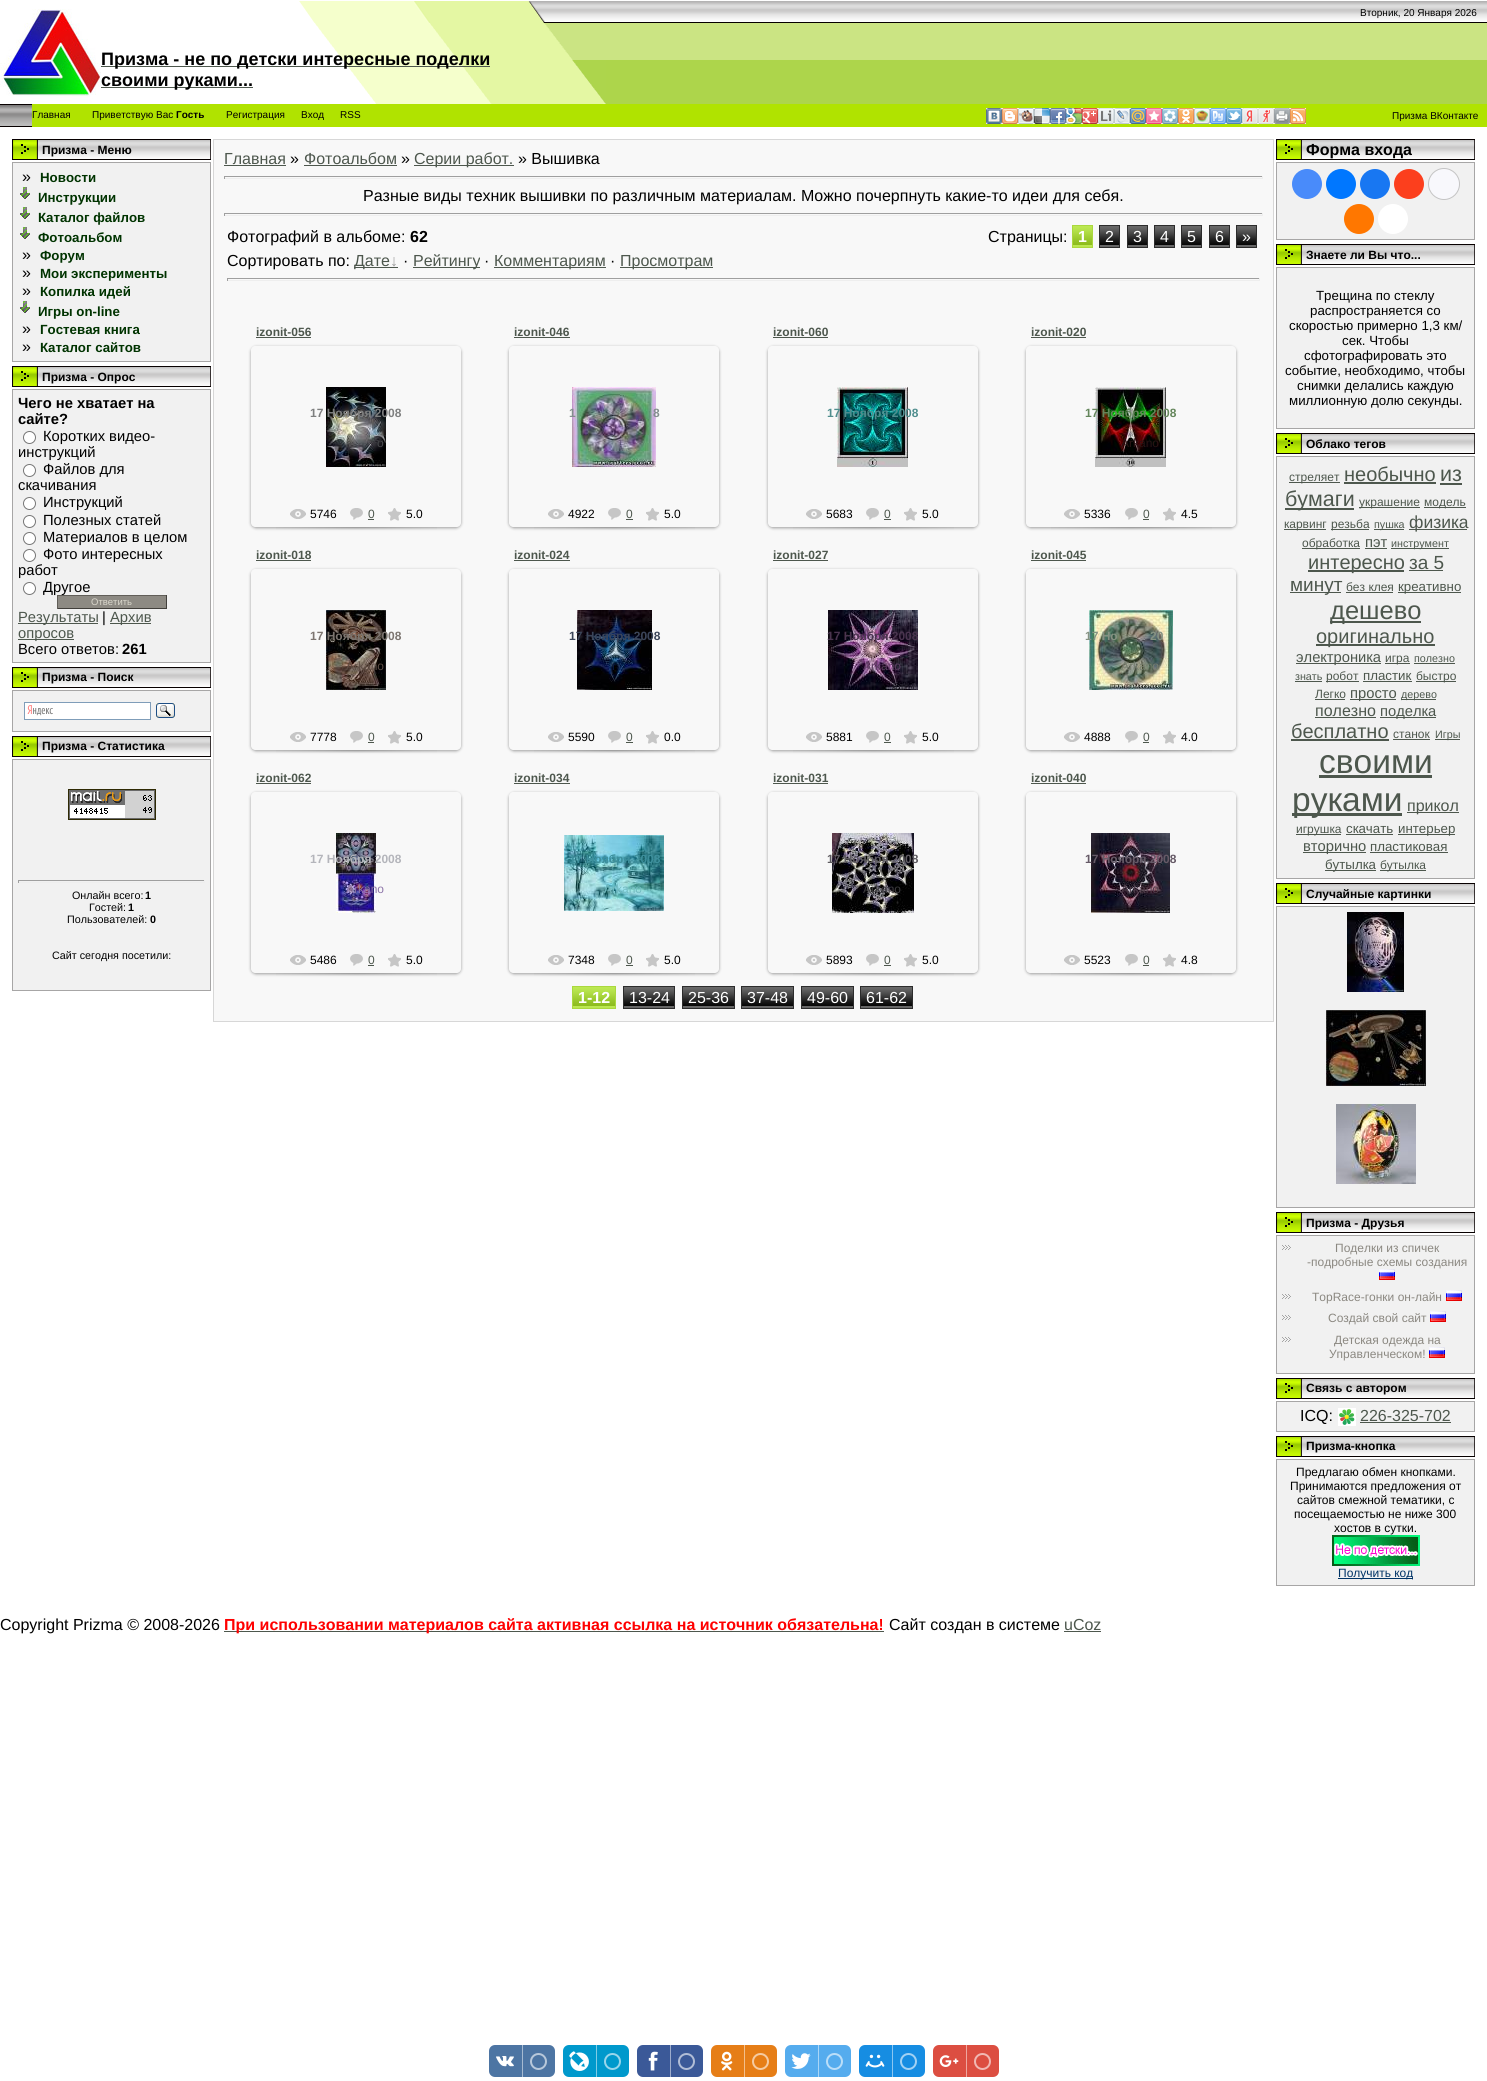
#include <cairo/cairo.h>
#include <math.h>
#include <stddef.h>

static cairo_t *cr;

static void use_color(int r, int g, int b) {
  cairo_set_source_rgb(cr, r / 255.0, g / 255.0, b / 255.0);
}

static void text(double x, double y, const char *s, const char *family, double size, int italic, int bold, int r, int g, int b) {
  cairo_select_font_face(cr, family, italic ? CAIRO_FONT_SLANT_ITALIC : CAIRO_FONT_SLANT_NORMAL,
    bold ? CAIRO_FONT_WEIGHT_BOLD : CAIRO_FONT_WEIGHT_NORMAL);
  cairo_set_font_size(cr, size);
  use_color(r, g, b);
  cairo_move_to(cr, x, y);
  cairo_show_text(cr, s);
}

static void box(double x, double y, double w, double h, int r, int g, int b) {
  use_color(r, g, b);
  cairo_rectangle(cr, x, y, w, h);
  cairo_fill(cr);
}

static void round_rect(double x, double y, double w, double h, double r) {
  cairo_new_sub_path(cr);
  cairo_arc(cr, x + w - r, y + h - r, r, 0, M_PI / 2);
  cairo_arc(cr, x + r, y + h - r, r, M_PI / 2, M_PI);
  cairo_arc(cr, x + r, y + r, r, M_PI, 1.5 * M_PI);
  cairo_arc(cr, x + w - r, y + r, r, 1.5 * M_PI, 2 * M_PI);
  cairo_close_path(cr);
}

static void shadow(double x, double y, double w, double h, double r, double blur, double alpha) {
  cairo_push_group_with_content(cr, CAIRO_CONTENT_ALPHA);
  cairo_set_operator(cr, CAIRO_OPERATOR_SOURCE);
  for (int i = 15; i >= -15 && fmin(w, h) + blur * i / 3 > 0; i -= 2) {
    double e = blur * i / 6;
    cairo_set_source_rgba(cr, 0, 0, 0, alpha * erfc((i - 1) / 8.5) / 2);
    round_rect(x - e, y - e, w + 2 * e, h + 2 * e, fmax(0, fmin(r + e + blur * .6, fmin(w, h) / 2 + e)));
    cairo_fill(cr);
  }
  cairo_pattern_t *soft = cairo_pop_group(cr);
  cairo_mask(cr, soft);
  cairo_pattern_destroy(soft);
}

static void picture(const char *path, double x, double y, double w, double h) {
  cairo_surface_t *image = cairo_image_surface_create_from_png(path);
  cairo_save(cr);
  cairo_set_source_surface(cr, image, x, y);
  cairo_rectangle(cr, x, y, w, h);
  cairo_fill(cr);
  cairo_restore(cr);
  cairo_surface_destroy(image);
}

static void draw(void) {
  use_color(255, 255, 255);
  cairo_paint(cr);
  picture("img_01.png", 0, 1, 1487, 126);
  picture("img_02.png", 0, 1, 101, 22);
  picture("img_03.png", 101, 1, 444, 22);
  picture("img_04.png", 0, 23, 101, 81);
  picture("img_05.png", 101, 23, 505, 81);
  box(101, 66, 389, 1, 77, 87, 77);
  box(101, 87, 152, 1, 77, 87, 77);
  box(32, 104, 1455, 23, 176, 227, 0);
  box(986, 108, 320, 16, 255, 255, 255);
  picture("img_06.png", 986, 108, 16, 16);
  picture("img_07.png", 1002, 108, 16, 16);
  picture("img_08.png", 1018, 108, 16, 16);
  picture("img_09.png", 1034, 108, 16, 16);
  picture("img_10.png", 1050, 108, 16, 16);
  picture("img_11.png", 1066, 108, 16, 16);
  picture("img_12.png", 1082, 108, 16, 16);
  picture("img_13.png", 1098, 108, 16, 16);
  picture("img_14.png", 1114, 108, 16, 16);
  picture("img_15.png", 1130, 108, 16, 16);
  picture("img_16.png", 1146, 108, 16, 16);
  picture("img_17.png", 1162, 108, 16, 16);
  picture("img_18.png", 1178, 108, 16, 16);
  picture("img_19.png", 1194, 108, 16, 16);
  picture("img_20.png", 1210, 108, 16, 16);
  picture("img_21.png", 1226, 108, 16, 16);
  picture("img_22.png", 1242, 108, 16, 16);
  picture("img_23.png", 1258, 108, 16, 16);
  picture("img_24.png", 1274, 108, 16, 16);
  picture("img_25.png", 1290, 108, 16, 16);
  picture("img_26.png", 12, 139, 199, 21);
  use_color(241, 241, 241);
  cairo_rectangle(cr, 12.5, 162.5, 198, 199);
  cairo_fill_preserve(cr);
  use_color(167, 166, 166);
  cairo_set_line_width(cr, 1);
  cairo_stroke(cr);
  picture("img_27.png", 20, 187, 10, 12);
  picture("img_27.png", 20, 207, 10, 12);
  picture("img_27.png", 20, 227, 10, 12);
  picture("img_27.png", 20, 301, 10, 12);
  picture("img_26.png", 12, 366, 199, 21);
  use_color(241, 241, 241);
  cairo_rectangle(cr, 12.5, 389.5, 198, 273);
  cairo_fill_preserve(cr);
  use_color(167, 166, 166);
  cairo_stroke(cr);
  use_color(255, 255, 255);
  cairo_arc(cr, 29.5, 437.5, 6, 0, 2 * M_PI);
  cairo_fill_preserve(cr);
  use_color(118, 118, 118);
  cairo_stroke(cr);
  use_color(255, 255, 255);
  cairo_arc(cr, 29.5, 470.5, 6, 0, 2 * M_PI);
  cairo_fill_preserve(cr);
  use_color(118, 118, 118);
  cairo_stroke(cr);
  use_color(255, 255, 255);
  cairo_arc(cr, 29.5, 503.5, 6, 0, 2 * M_PI);
  cairo_fill_preserve(cr);
  use_color(118, 118, 118);
  cairo_stroke(cr);
  use_color(255, 255, 255);
  cairo_arc(cr, 29.5, 521.5, 6, 0, 2 * M_PI);
  cairo_fill_preserve(cr);
  use_color(118, 118, 118);
  cairo_stroke(cr);
  use_color(255, 255, 255);
  cairo_arc(cr, 29.5, 538.5, 6, 0, 2 * M_PI);
  cairo_fill_preserve(cr);
  use_color(118, 118, 118);
  cairo_stroke(cr);
  use_color(255, 255, 255);
  cairo_arc(cr, 29.5, 555.5, 6, 0, 2 * M_PI);
  cairo_fill_preserve(cr);
  use_color(118, 118, 118);
  cairo_stroke(cr);
  use_color(255, 255, 255);
  cairo_arc(cr, 29.5, 588.5, 6, 0, 2 * M_PI);
  cairo_fill_preserve(cr);
  use_color(118, 118, 118);
  cairo_stroke(cr);
  box(58, 596, 108, 12, 141, 138, 131);
  box(18, 623, 80, 1, 77, 87, 77);
  box(110, 623, 41, 1, 77, 87, 77);
  box(18, 639, 56, 1, 77, 87, 77);
  picture("img_26.png", 12, 667, 199, 21);
  use_color(241, 241, 241);
  cairo_rectangle(cr, 12.5, 690.5, 198, 41);
  cairo_fill_preserve(cr);
  use_color(167, 166, 166);
  cairo_stroke(cr);
  box(25, 703, 125, 16, 255, 255, 255);
  picture("img_28.png", 27, 705, 26, 11);
  cairo_rectangle(cr, 24.5, 702.5, 126, 17);
  use_color(127, 157, 185);
  cairo_stroke(cr);
  picture("img_29.png", 156, 703, 19, 15);
  picture("img_26.png", 12, 736, 199, 21);
  use_color(241, 241, 241);
  cairo_rectangle(cr, 12.5, 759.5, 198, 231);
  cairo_fill_preserve(cr);
  use_color(167, 166, 166);
  cairo_stroke(cr);
  picture("img_30.png", 68, 789, 88, 31);
  box(18, 880, 187, 1, 159, 159, 159);
  box(204, 880, 1, 3, 238, 238, 238);
  box(18, 882, 187, 1, 238, 238, 238);
  box(18, 880, 1, 3, 159, 159, 159);
  cairo_rectangle(cr, 213.5, 139.5, 1060, 882);
  use_color(215, 215, 215);
  cairo_stroke(cr);
  box(214, 140, 1059, 881, 248, 248, 248);
  box(224, 165, 62, 1, 77, 87, 77);
  box(304, 165, 93, 1, 77, 87, 77);
  box(414, 165, 100, 1, 77, 87, 77);
  box(224, 176, 1039, 1, 159, 159, 159);
  box(1262, 176, 1, 3, 238, 238, 238);
  box(224, 178, 1039, 1, 238, 238, 238);
  box(224, 176, 1, 3, 159, 159, 159);
  box(224, 213, 1039, 1, 159, 159, 159);
  box(1262, 213, 1, 3, 238, 238, 238);
  box(224, 215, 1039, 1, 238, 238, 238);
  box(224, 213, 1, 3, 159, 159, 159);
  picture("img_31.png", 1073, 226, 19, 21);
  picture("img_32.png", 1100, 226, 19, 21);
  picture("img_32.png", 1128, 226, 19, 21);
  picture("img_32.png", 1155, 226, 19, 21);
  picture("img_32.png", 1182, 226, 19, 21);
  picture("img_32.png", 1210, 226, 19, 21);
  picture("img_32.png", 1237, 226, 19, 21);
  cairo_rectangle(cr, 1072.5, 225.5, 20, 22);
  use_color(170, 216, 62);
  cairo_stroke(cr);
  cairo_rectangle(cr, 1099.5, 225.5, 20, 22);
  use_color(44, 44, 44);
  cairo_stroke(cr);
  cairo_rectangle(cr, 1127.5, 225.5, 20, 22);
  cairo_stroke(cr);
  cairo_rectangle(cr, 1154.5, 225.5, 20, 22);
  cairo_stroke(cr);
  cairo_rectangle(cr, 1181.5, 225.5, 20, 22);
  cairo_stroke(cr);
  cairo_rectangle(cr, 1209.5, 225.5, 20, 22);
  cairo_stroke(cr);
  cairo_rectangle(cr, 1236.5, 225.5, 20, 22);
  cairo_stroke(cr);
  box(354, 267, 44, 1, 77, 87, 77);
  box(413, 267, 67, 1, 77, 87, 77);
  box(494, 267, 112, 1, 77, 87, 77);
  box(620, 267, 93, 1, 77, 87, 77);
  box(227, 278, 1033, 1, 159, 159, 159);
  box(1259, 278, 1, 3, 238, 238, 238);
  box(227, 280, 1033, 1, 238, 238, 238);
  box(227, 278, 1, 3, 159, 159, 159);
  box(256, 337, 55, 1, 77, 87, 77);
  cairo_save(cr);
  cairo_set_fill_rule(cr, CAIRO_FILL_RULE_EVEN_ODD);
  cairo_new_path(cr);
  cairo_move_to(cr, 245, 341);
  cairo_line_to(cr, 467, 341);
  cairo_line_to(cr, 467, 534);
  cairo_line_to(cr, 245, 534);
  cairo_close_path(cr);
  cairo_move_to(cr, 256, 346);
  cairo_line_to(cr, 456, 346);
  cairo_curve_to(cr, 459, 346, 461, 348, 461, 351);
  cairo_line_to(cr, 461, 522);
  cairo_curve_to(cr, 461, 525, 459, 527, 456, 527);
  cairo_line_to(cr, 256, 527);
  cairo_curve_to(cr, 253, 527, 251, 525, 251, 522);
  cairo_line_to(cr, 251, 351);
  cairo_curve_to(cr, 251, 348, 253, 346, 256, 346);
  cairo_close_path(cr);
  cairo_clip(cr);
  use_color(0, 0, 0);
  shadow(251, 347, 210, 181, 5, 1.5, 0.37);
  cairo_restore(cr);
  picture("img_33.png", 326, 387, 60, 80);
  picture("img_34.png", 290, 509, 16, 10);
  picture("img_35.png", 350, 508, 13, 12);
  box(368, 519, 6, 1, 77, 87, 77);
  picture("img_36.png", 388, 508, 13, 13);
  picture("img_37.png", 276, 527, 161, 3);
  box(514, 337, 56, 1, 77, 87, 77);
  cairo_save(cr);
  cairo_set_fill_rule(cr, CAIRO_FILL_RULE_EVEN_ODD);
  cairo_new_path(cr);
  cairo_move_to(cr, 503, 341);
  cairo_line_to(cr, 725, 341);
  cairo_line_to(cr, 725, 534);
  cairo_line_to(cr, 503, 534);
  cairo_close_path(cr);
  cairo_move_to(cr, 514, 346);
  cairo_line_to(cr, 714, 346);
  cairo_curve_to(cr, 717, 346, 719, 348, 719, 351);
  cairo_line_to(cr, 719, 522);
  cairo_curve_to(cr, 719, 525, 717, 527, 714, 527);
  cairo_line_to(cr, 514, 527);
  cairo_curve_to(cr, 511, 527, 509, 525, 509, 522);
  cairo_line_to(cr, 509, 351);
  cairo_curve_to(cr, 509, 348, 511, 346, 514, 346);
  cairo_close_path(cr);
  cairo_clip(cr);
  use_color(0, 0, 0);
  shadow(509, 347, 210, 181, 5, 1.5, 0.37);
  cairo_restore(cr);
  picture("img_38.png", 572, 387, 84, 80);
  picture("img_34.png", 548, 509, 16, 10);
  picture("img_35.png", 608, 508, 13, 12);
  box(626, 519, 7, 1, 77, 87, 77);
  picture("img_36.png", 646, 508, 13, 13);
  picture("img_37.png", 534, 527, 161, 3);
  box(773, 337, 55, 1, 77, 87, 77);
  cairo_save(cr);
  cairo_set_fill_rule(cr, CAIRO_FILL_RULE_EVEN_ODD);
  cairo_new_path(cr);
  cairo_move_to(cr, 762, 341);
  cairo_line_to(cr, 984, 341);
  cairo_line_to(cr, 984, 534);
  cairo_line_to(cr, 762, 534);
  cairo_close_path(cr);
  cairo_move_to(cr, 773, 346);
  cairo_line_to(cr, 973, 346);
  cairo_curve_to(cr, 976, 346, 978, 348, 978, 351);
  cairo_line_to(cr, 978, 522);
  cairo_curve_to(cr, 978, 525, 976, 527, 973, 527);
  cairo_line_to(cr, 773, 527);
  cairo_curve_to(cr, 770, 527, 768, 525, 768, 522);
  cairo_line_to(cr, 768, 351);
  cairo_curve_to(cr, 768, 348, 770, 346, 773, 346);
  cairo_close_path(cr);
  cairo_clip(cr);
  use_color(0, 0, 0);
  shadow(768, 347, 210, 181, 5, 1.5, 0.37);
  cairo_restore(cr);
  picture("img_39.png", 837, 387, 71, 80);
  picture("img_34.png", 806, 509, 16, 10);
  picture("img_35.png", 866, 508, 13, 12);
  box(884, 519, 7, 1, 77, 87, 77);
  picture("img_36.png", 904, 508, 13, 13);
  picture("img_37.png", 793, 527, 161, 3);
  box(1031, 337, 55, 1, 77, 87, 77);
  cairo_save(cr);
  cairo_set_fill_rule(cr, CAIRO_FILL_RULE_EVEN_ODD);
  cairo_new_path(cr);
  cairo_move_to(cr, 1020, 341);
  cairo_line_to(cr, 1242, 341);
  cairo_line_to(cr, 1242, 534);
  cairo_line_to(cr, 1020, 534);
  cairo_close_path(cr);
  cairo_move_to(cr, 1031, 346);
  cairo_line_to(cr, 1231, 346);
  cairo_curve_to(cr, 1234, 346, 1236, 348, 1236, 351);
  cairo_line_to(cr, 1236, 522);
  cairo_curve_to(cr, 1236, 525, 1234, 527, 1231, 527);
  cairo_line_to(cr, 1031, 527);
  cairo_curve_to(cr, 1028, 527, 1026, 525, 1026, 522);
  cairo_line_to(cr, 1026, 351);
  cairo_curve_to(cr, 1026, 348, 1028, 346, 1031, 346);
  cairo_close_path(cr);
  cairo_clip(cr);
  use_color(0, 0, 0);
  shadow(1026, 347, 210, 181, 5, 1.5, 0.37);
  cairo_restore(cr);
  picture("img_40.png", 1095, 387, 71, 80);
  picture("img_34.png", 1064, 509, 16, 10);
  picture("img_35.png", 1125, 508, 13, 12);
  box(1143, 519, 6, 1, 77, 87, 77);
  picture("img_36.png", 1163, 508, 13, 13);
  picture("img_37.png", 1051, 527, 161, 3);
  box(256, 560, 55, 1, 77, 87, 77);
  cairo_save(cr);
  cairo_set_fill_rule(cr, CAIRO_FILL_RULE_EVEN_ODD);
  cairo_new_path(cr);
  cairo_move_to(cr, 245, 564);
  cairo_line_to(cr, 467, 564);
  cairo_line_to(cr, 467, 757);
  cairo_line_to(cr, 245, 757);
  cairo_close_path(cr);
  cairo_move_to(cr, 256, 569);
  cairo_line_to(cr, 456, 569);
  cairo_curve_to(cr, 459, 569, 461, 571, 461, 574);
  cairo_line_to(cr, 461, 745);
  cairo_curve_to(cr, 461, 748, 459, 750, 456, 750);
  cairo_line_to(cr, 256, 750);
  cairo_curve_to(cr, 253, 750, 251, 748, 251, 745);
  cairo_line_to(cr, 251, 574);
  cairo_curve_to(cr, 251, 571, 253, 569, 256, 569);
  cairo_close_path(cr);
  cairo_clip(cr);
  use_color(0, 0, 0);
  shadow(251, 570, 210, 181, 5, 1.5, 0.37);
  cairo_restore(cr);
  picture("img_41.png", 326, 610, 60, 80);
  picture("img_34.png", 290, 732, 16, 10);
  picture("img_35.png", 350, 731, 13, 12);
  box(368, 742, 6, 1, 77, 87, 77);
  picture("img_36.png", 388, 731, 13, 13);
  picture("img_37.png", 276, 750, 161, 3);
  box(514, 560, 56, 1, 77, 87, 77);
  cairo_save(cr);
  cairo_set_fill_rule(cr, CAIRO_FILL_RULE_EVEN_ODD);
  cairo_new_path(cr);
  cairo_move_to(cr, 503, 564);
  cairo_line_to(cr, 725, 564);
  cairo_line_to(cr, 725, 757);
  cairo_line_to(cr, 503, 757);
  cairo_close_path(cr);
  cairo_move_to(cr, 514, 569);
  cairo_line_to(cr, 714, 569);
  cairo_curve_to(cr, 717, 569, 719, 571, 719, 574);
  cairo_line_to(cr, 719, 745);
  cairo_curve_to(cr, 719, 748, 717, 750, 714, 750);
  cairo_line_to(cr, 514, 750);
  cairo_curve_to(cr, 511, 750, 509, 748, 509, 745);
  cairo_line_to(cr, 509, 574);
  cairo_curve_to(cr, 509, 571, 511, 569, 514, 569);
  cairo_close_path(cr);
  cairo_clip(cr);
  use_color(0, 0, 0);
  shadow(509, 570, 210, 181, 5, 1.5, 0.37);
  cairo_restore(cr);
  picture("img_42.png", 577, 610, 75, 80);
  picture("img_34.png", 548, 732, 16, 10);
  picture("img_35.png", 608, 731, 13, 12);
  box(626, 742, 7, 1, 77, 87, 77);
  picture("img_36.png", 646, 731, 13, 13);
  picture("img_37.png", 534, 750, 161, 3);
  box(773, 560, 55, 1, 77, 87, 77);
  cairo_save(cr);
  cairo_set_fill_rule(cr, CAIRO_FILL_RULE_EVEN_ODD);
  cairo_new_path(cr);
  cairo_move_to(cr, 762, 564);
  cairo_line_to(cr, 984, 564);
  cairo_line_to(cr, 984, 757);
  cairo_line_to(cr, 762, 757);
  cairo_close_path(cr);
  cairo_move_to(cr, 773, 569);
  cairo_line_to(cr, 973, 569);
  cairo_curve_to(cr, 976, 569, 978, 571, 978, 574);
  cairo_line_to(cr, 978, 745);
  cairo_curve_to(cr, 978, 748, 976, 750, 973, 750);
  cairo_line_to(cr, 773, 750);
  cairo_curve_to(cr, 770, 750, 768, 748, 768, 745);
  cairo_line_to(cr, 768, 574);
  cairo_curve_to(cr, 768, 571, 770, 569, 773, 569);
  cairo_close_path(cr);
  cairo_clip(cr);
  use_color(0, 0, 0);
  shadow(768, 570, 210, 181, 5, 1.5, 0.37);
  cairo_restore(cr);
  picture("img_43.png", 828, 610, 90, 80);
  picture("img_34.png", 806, 732, 16, 10);
  picture("img_35.png", 866, 731, 13, 12);
  box(884, 742, 7, 1, 77, 87, 77);
  picture("img_36.png", 904, 731, 13, 13);
  picture("img_37.png", 793, 750, 161, 3);
  box(1031, 560, 55, 1, 77, 87, 77);
  cairo_save(cr);
  cairo_set_fill_rule(cr, CAIRO_FILL_RULE_EVEN_ODD);
  cairo_new_path(cr);
  cairo_move_to(cr, 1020, 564);
  cairo_line_to(cr, 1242, 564);
  cairo_line_to(cr, 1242, 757);
  cairo_line_to(cr, 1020, 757);
  cairo_close_path(cr);
  cairo_move_to(cr, 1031, 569);
  cairo_line_to(cr, 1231, 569);
  cairo_curve_to(cr, 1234, 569, 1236, 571, 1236, 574);
  cairo_line_to(cr, 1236, 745);
  cairo_curve_to(cr, 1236, 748, 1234, 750, 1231, 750);
  cairo_line_to(cr, 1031, 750);
  cairo_curve_to(cr, 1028, 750, 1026, 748, 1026, 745);
  cairo_line_to(cr, 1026, 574);
  cairo_curve_to(cr, 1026, 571, 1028, 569, 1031, 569);
  cairo_close_path(cr);
  cairo_clip(cr);
  use_color(0, 0, 0);
  shadow(1026, 570, 210, 181, 5, 1.5, 0.37);
  cairo_restore(cr);
  picture("img_44.png", 1089, 610, 84, 80);
  picture("img_34.png", 1064, 732, 16, 10);
  picture("img_35.png", 1125, 731, 13, 12);
  box(1143, 742, 6, 1, 77, 87, 77);
  picture("img_36.png", 1163, 731, 13, 13);
  picture("img_37.png", 1051, 750, 161, 3);
  box(256, 783, 55, 1, 77, 87, 77);
  cairo_save(cr);
  cairo_set_fill_rule(cr, CAIRO_FILL_RULE_EVEN_ODD);
  cairo_new_path(cr);
  cairo_move_to(cr, 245, 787);
  cairo_line_to(cr, 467, 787);
  cairo_line_to(cr, 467, 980);
  cairo_line_to(cr, 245, 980);
  cairo_close_path(cr);
  cairo_move_to(cr, 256, 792);
  cairo_line_to(cr, 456, 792);
  cairo_curve_to(cr, 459, 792, 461, 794, 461, 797);
  cairo_line_to(cr, 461, 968);
  cairo_curve_to(cr, 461, 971, 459, 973, 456, 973);
  cairo_line_to(cr, 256, 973);
  cairo_curve_to(cr, 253, 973, 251, 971, 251, 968);
  cairo_line_to(cr, 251, 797);
  cairo_curve_to(cr, 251, 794, 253, 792, 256, 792);
  cairo_close_path(cr);
  cairo_clip(cr);
  use_color(0, 0, 0);
  shadow(251, 793, 210, 181, 5, 1.5, 0.37);
  cairo_restore(cr);
  picture("img_45.png", 336, 833, 40, 80);
  picture("img_34.png", 290, 955, 16, 10);
  picture("img_35.png", 350, 954, 13, 12);
  box(368, 965, 6, 1, 77, 87, 77);
  picture("img_36.png", 388, 954, 13, 13);
  picture("img_37.png", 276, 973, 161, 3);
  box(514, 783, 56, 1, 77, 87, 77);
  cairo_save(cr);
  cairo_set_fill_rule(cr, CAIRO_FILL_RULE_EVEN_ODD);
  cairo_new_path(cr);
  cairo_move_to(cr, 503, 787);
  cairo_line_to(cr, 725, 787);
  cairo_line_to(cr, 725, 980);
  cairo_line_to(cr, 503, 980);
  cairo_close_path(cr);
  cairo_move_to(cr, 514, 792);
  cairo_line_to(cr, 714, 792);
  cairo_curve_to(cr, 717, 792, 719, 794, 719, 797);
  cairo_line_to(cr, 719, 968);
  cairo_curve_to(cr, 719, 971, 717, 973, 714, 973);
  cairo_line_to(cr, 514, 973);
  cairo_curve_to(cr, 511, 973, 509, 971, 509, 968);
  cairo_line_to(cr, 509, 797);
  cairo_curve_to(cr, 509, 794, 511, 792, 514, 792);
  cairo_close_path(cr);
  cairo_clip(cr);
  use_color(0, 0, 0);
  shadow(509, 793, 210, 181, 5, 1.5, 0.37);
  cairo_restore(cr);
  picture("img_46.png", 564, 835, 100, 76);
  picture("img_34.png", 548, 955, 16, 10);
  picture("img_35.png", 608, 954, 13, 12);
  box(626, 965, 7, 1, 77, 87, 77);
  picture("img_36.png", 646, 954, 13, 13);
  picture("img_37.png", 534, 973, 161, 3);
  box(773, 783, 55, 1, 77, 87, 77);
  cairo_save(cr);
  cairo_set_fill_rule(cr, CAIRO_FILL_RULE_EVEN_ODD);
  cairo_new_path(cr);
  cairo_move_to(cr, 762, 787);
  cairo_line_to(cr, 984, 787);
  cairo_line_to(cr, 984, 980);
  cairo_line_to(cr, 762, 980);
  cairo_close_path(cr);
  cairo_move_to(cr, 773, 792);
  cairo_line_to(cr, 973, 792);
  cairo_curve_to(cr, 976, 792, 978, 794, 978, 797);
  cairo_line_to(cr, 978, 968);
  cairo_curve_to(cr, 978, 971, 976, 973, 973, 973);
  cairo_line_to(cr, 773, 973);
  cairo_curve_to(cr, 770, 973, 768, 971, 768, 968);
  cairo_line_to(cr, 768, 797);
  cairo_curve_to(cr, 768, 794, 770, 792, 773, 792);
  cairo_close_path(cr);
  cairo_clip(cr);
  use_color(0, 0, 0);
  shadow(768, 793, 210, 181, 5, 1.5, 0.37);
  cairo_restore(cr);
  picture("img_47.png", 832, 833, 82, 80);
  picture("img_34.png", 806, 955, 16, 10);
  picture("img_35.png", 866, 954, 13, 12);
  box(884, 965, 7, 1, 77, 87, 77);
  picture("img_36.png", 904, 954, 13, 13);
  picture("img_37.png", 793, 973, 161, 3);
  box(1031, 783, 55, 1, 77, 87, 77);
  cairo_save(cr);
  cairo_set_fill_rule(cr, CAIRO_FILL_RULE_EVEN_ODD);
  cairo_new_path(cr);
  cairo_move_to(cr, 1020, 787);
  cairo_line_to(cr, 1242, 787);
  cairo_line_to(cr, 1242, 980);
  cairo_line_to(cr, 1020, 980);
  cairo_close_path(cr);
  cairo_move_to(cr, 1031, 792);
  cairo_line_to(cr, 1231, 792);
  cairo_curve_to(cr, 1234, 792, 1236, 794, 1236, 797);
  cairo_line_to(cr, 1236, 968);
  cairo_curve_to(cr, 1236, 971, 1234, 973, 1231, 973);
  cairo_line_to(cr, 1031, 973);
  cairo_curve_to(cr, 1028, 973, 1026, 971, 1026, 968);
  cairo_line_to(cr, 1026, 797);
  cairo_curve_to(cr, 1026, 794, 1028, 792, 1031, 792);
  cairo_close_path(cr);
  cairo_clip(cr);
  use_color(0, 0, 0);
  shadow(1026, 793, 210, 181, 5, 1.5, 0.37);
  cairo_restore(cr);
  picture("img_48.png", 1091, 833, 79, 80);
  picture("img_34.png", 1064, 955, 16, 10);
  picture("img_35.png", 1125, 954, 13, 12);
  box(1143, 965, 6, 1, 77, 87, 77);
  picture("img_36.png", 1163, 954, 13, 13);
  picture("img_37.png", 1051, 973, 161, 3);
  picture("img_49.png", 573, 987, 42, 21);
  picture("img_50.png", 624, 987, 50, 21);
  picture("img_51.png", 683, 987, 51, 21);
  picture("img_51.png", 742, 987, 51, 21);
  picture("img_51.png", 802, 987, 51, 21);
  picture("img_51.png", 861, 987, 51, 21);
  cairo_rectangle(cr, 572.5, 986.5, 43, 22);
  use_color(170, 216, 62);
  cairo_stroke(cr);
  cairo_rectangle(cr, 623.5, 986.5, 51, 22);
  use_color(44, 44, 44);
  cairo_stroke(cr);
  cairo_rectangle(cr, 682.5, 986.5, 52, 22);
  cairo_stroke(cr);
  cairo_rectangle(cr, 741.5, 986.5, 52, 22);
  cairo_stroke(cr);
  cairo_rectangle(cr, 801.5, 986.5, 52, 22);
  cairo_stroke(cr);
  cairo_rectangle(cr, 860.5, 986.5, 52, 22);
  cairo_stroke(cr);
  picture("img_26.png", 1276, 139, 199, 21);
  use_color(241, 241, 241);
  cairo_rectangle(cr, 1276.5, 162.5, 198, 77);
  cairo_fill_preserve(cr);
  use_color(167, 166, 166);
  cairo_stroke(cr);
  use_color(73, 139, 250);
  cairo_arc(cr, 1307, 184, 15, 0, 2 * M_PI);
  cairo_fill(cr);
  use_color(0, 119, 255);
  cairo_arc(cr, 1341, 184, 15, 0, 2 * M_PI);
  cairo_fill(cr);
  use_color(24, 119, 242);
  cairo_arc(cr, 1375, 184, 15, 0, 2 * M_PI);
  cairo_fill(cr);
  use_color(252, 63, 29);
  cairo_arc(cr, 1409, 184, 15, 0, 2 * M_PI);
  cairo_fill(cr);
  use_color(248, 248, 252);
  cairo_arc(cr, 1444, 184, 15.5, 0, 2 * M_PI);
  cairo_fill_preserve(cr);
  use_color(196, 196, 196);
  cairo_stroke(cr);
  use_color(255, 119, 0);
  cairo_arc(cr, 1359, 219, 15, 0, 2 * M_PI);
  cairo_fill(cr);
  use_color(255, 255, 255);
  cairo_arc(cr, 1393, 219, 15, 0, 2 * M_PI);
  cairo_fill(cr);
  picture("img_26.png", 1276, 244, 199, 21);
  use_color(241, 241, 241);
  cairo_rectangle(cr, 1276.5, 267.5, 198, 161);
  cairo_fill_preserve(cr);
  use_color(167, 166, 166);
  cairo_stroke(cr);
  picture("img_26.png", 1276, 433, 199, 21);
  use_color(241, 241, 241);
  cairo_rectangle(cr, 1276.5, 456.5, 198, 422);
  cairo_fill_preserve(cr);
  use_color(167, 166, 166);
  cairo_stroke(cr);
  box(1289, 482, 51, 1, 77, 87, 77);
  box(1344, 482, 92, 2, 77, 87, 77);
  box(1440, 483, 22, 2, 77, 87, 77);
  box(1285, 508, 69, 2, 77, 87, 77);
  box(1359, 507, 61, 1, 77, 87, 77);
  box(1424, 507, 42, 1, 77, 87, 77);
  box(1284, 529, 42, 1, 77, 87, 77);
  box(1331, 529, 38, 1, 77, 87, 77);
  box(1374, 529, 30, 1, 77, 87, 77);
  box(1409, 529, 58, 1, 77, 87, 77);
  box(1302, 548, 58, 1, 77, 87, 77);
  box(1365, 548, 22, 1, 77, 87, 77);
  box(1391, 548, 58, 1, 77, 87, 77);
  box(1308, 570, 96, 2, 77, 87, 77);
  box(1409, 570, 34, 1, 77, 87, 77);
  box(1290, 592, 51, 1, 77, 87, 77);
  box(1346, 592, 47, 1, 77, 87, 77);
  box(1398, 592, 63, 1, 77, 87, 77);
  box(1330, 621, 91, 2, 77, 87, 77);
  box(1316, 644, 119, 2, 77, 87, 77);
  box(1296, 663, 85, 1, 77, 87, 77);
  box(1385, 663, 25, 1, 77, 87, 77);
  box(1414, 663, 41, 1, 77, 87, 77);
  box(1295, 681, 27, 1, 77, 87, 77);
  box(1326, 681, 33, 1, 77, 87, 77);
  box(1363, 681, 49, 1, 77, 87, 77);
  box(1416, 681, 40, 1, 77, 87, 77);
  box(1315, 699, 30, 1, 77, 87, 77);
  box(1350, 699, 46, 1, 77, 87, 77);
  box(1401, 699, 35, 1, 77, 87, 77);
  box(1315, 717, 61, 1, 77, 87, 77);
  box(1380, 717, 56, 1, 77, 87, 77);
  box(1291, 739, 98, 2, 77, 87, 77);
  box(1393, 739, 37, 1, 77, 87, 77);
  box(1435, 739, 25, 1, 77, 87, 77);
  box(1319, 775, 113, 3, 77, 87, 77);
  box(1292, 813, 110, 3, 77, 87, 77);
  box(1407, 812, 52, 1, 77, 87, 77);
  box(1296, 834, 45, 1, 77, 87, 77);
  box(1346, 834, 47, 1, 77, 87, 77);
  box(1398, 834, 57, 1, 77, 87, 77);
  box(1303, 852, 63, 1, 77, 87, 77);
  box(1370, 852, 78, 1, 77, 87, 77);
  box(1325, 870, 51, 1, 77, 87, 77);
  box(1380, 870, 46, 1, 77, 87, 77);
  picture("img_26.png", 1276, 883, 199, 21);
  use_color(241, 241, 241);
  cairo_rectangle(cr, 1276.5, 906.5, 198, 301);
  cairo_fill_preserve(cr);
  use_color(167, 166, 166);
  cairo_stroke(cr);
  picture("img_52.png", 1347, 912, 57, 80);
  picture("img_53.png", 1326, 1010, 100, 76);
  picture("img_54.png", 1336, 1104, 80, 80);
  picture("img_26.png", 1276, 1212, 199, 21);
  use_color(241, 241, 241);
  cairo_rectangle(cr, 1276.5, 1235.5, 198, 138);
  cairo_fill_preserve(cr);
  use_color(167, 166, 166);
  cairo_stroke(cr);
  picture("img_55.png", 1282, 1245, 9, 5);
  picture("img_56.png", 1379, 1269, 16, 11);
  picture("img_55.png", 1282, 1294, 9, 5);
  picture("img_56.png", 1446, 1290, 16, 11);
  picture("img_55.png", 1282, 1315, 9, 5);
  picture("img_56.png", 1430, 1311, 16, 11);
  picture("img_55.png", 1282, 1337, 9, 5);
  picture("img_56.png", 1429, 1347, 16, 11);
  picture("img_26.png", 1276, 1378, 199, 21);
  use_color(241, 241, 241);
  cairo_rectangle(cr, 1276.5, 1401.5, 198, 30);
  cairo_fill_preserve(cr);
  use_color(167, 166, 166);
  cairo_stroke(cr);
  picture("img_57.png", 1338, 1408, 18, 18);
  box(1360, 1422, 91, 1, 77, 87, 77);
  picture("img_26.png", 1276, 1436, 199, 21);
  use_color(241, 241, 241);
  cairo_rectangle(cr, 1276.5, 1459.5, 198, 126);
  cairo_fill_preserve(cr);
  use_color(167, 166, 166);
  cairo_stroke(cr);
  picture("img_58.png", 1332, 1535, 88, 31);
  box(1338, 1578, 75, 1, 0, 51, 102);
  box(224, 1631, 660, 1, 77, 87, 77);
  box(1064, 1631, 37, 1, 77, 87, 77);
  use_color(77, 117, 163);
  round_rect(489, 2045, 66, 32, 6);
  cairo_fill(cr);
  picture("img_59.png", 496, 2056, 18, 11);
  box(522, 2045, 1, 32, 166, 186, 209);
  cairo_arc(cr, 538.5, 2061.5, 7.5, 0, 2 * M_PI);
  use_color(184, 200, 218);
  cairo_set_line_width(cr, 2);
  cairo_stroke(cr);
  use_color(0, 153, 204);
  round_rect(563, 2045, 66, 32, 6);
  cairo_fill(cr);
  picture("img_60.png", 569, 2051, 20, 20);
  box(596, 2045, 1, 32, 128, 204, 230);
  cairo_arc(cr, 612.5, 2061.5, 7.5, 0, 2 * M_PI);
  use_color(153, 214, 235);
  cairo_stroke(cr);
  use_color(59, 89, 152);
  round_rect(637, 2045, 66, 32, 6);
  cairo_fill(cr);
  picture("img_61.png", 648, 2051, 10, 20);
  box(670, 2045, 1, 32, 157, 172, 204);
  cairo_arc(cr, 686.5, 2061.5, 7.5, 0, 2 * M_PI);
  use_color(177, 189, 214);
  cairo_stroke(cr);
  use_color(230, 126, 23);
  round_rect(711, 2045, 66, 32, 6);
  cairo_fill(cr);
  picture("img_62.png", 721, 2051, 12, 20);
  box(744, 2045, 1, 32, 243, 191, 139);
  cairo_arc(cr, 760.5, 2061.5, 7.5, 0, 2 * M_PI);
  use_color(245, 203, 162);
  cairo_stroke(cr);
  use_color(85, 172, 238);
  round_rect(785, 2045, 66, 32, 6);
  cairo_fill(cr);
  picture("img_63.png", 791, 2053, 20, 16);
  box(818, 2045, 1, 32, 170, 214, 247);
  cairo_arc(cr, 834.5, 2061.5, 7.5, 0, 2 * M_PI);
  use_color(187, 222, 248);
  cairo_stroke(cr);
  use_color(22, 141, 226);
  round_rect(859, 2045, 66, 32, 6);
  cairo_fill(cr);
  picture("img_64.png", 865, 2054, 20, 14);
  box(892, 2045, 1, 32, 139, 198, 241);
  cairo_arc(cr, 908.5, 2061.5, 7.5, 0, 2 * M_PI);
  use_color(162, 209, 243);
  cairo_stroke(cr);
  use_color(220, 78, 65);
  round_rect(933, 2045, 66, 32, 6);
  cairo_fill(cr);
  picture("img_65.png", 939, 2055, 20, 12);
  box(966, 2045, 1, 32, 238, 167, 160);
  cairo_arc(cr, 982.5, 2061.5, 7.5, 0, 2 * M_PI);
  use_color(241, 184, 179);
  cairo_stroke(cr);
  text(1360, 16, "Вторник, 20 Января 2026", "Liberation Sans", 10, 0, 0, 0, 0, 0);
  text(101, 65, "Призма - не по детски интересные поделки", "Liberation Sans", 18, 0, 1, 0, 0, 0);
  text(101, 86, "своими руками...", "Liberation Sans", 18, 0, 1, 0, 0, 0);
  text(32, 118, "Главная", "Liberation Sans", 10, 0, 0, 0, 0, 0);
  text(92, 118, "Приветствую Вас", "Liberation Sans", 10, 0, 0, 0, 0, 0);
  text(176, 118, "Гость", "Liberation Sans", 10, 0, 1, 0, 0, 0);
  text(226, 118, "Регистрация", "Liberation Sans", 10, 0, 0, 0, 0, 0);
  text(301, 118, "Вход", "Liberation Sans", 10, 0, 0, 0, 0, 0);
  text(340, 118, "RSS", "Liberation Sans", 10, 0, 0, 0, 0, 0);
  text(1392, 119, "Призма ВКонтакте", "Liberation Sans", 10, 0, 0, 0, 0, 0);
  text(42, 154, "Призма - Меню", "Liberation Sans", 12, 0, 1, 0, 0, 0);
  text(22, 182, "»", "Liberation Sans", 16, 0, 0, 0, 0, 0);
  text(40, 182, "Новости", "Liberation Sans", 13.3, 0, 1, 0, 51, 0);
  text(38, 202, "Инструкции", "Liberation Sans", 13.3, 0, 1, 0, 51, 0);
  text(38, 222, "Каталог файлов", "Liberation Sans", 13.3, 0, 1, 0, 51, 0);
  text(38, 242, "Фотоальбом", "Liberation Sans", 13.3, 0, 1, 0, 51, 0);
  text(22, 260, "»", "Liberation Sans", 16, 0, 0, 0, 0, 0);
  text(40, 260, "Форум", "Liberation Sans", 13.3, 0, 1, 0, 51, 0);
  text(22, 278, "»", "Liberation Sans", 16, 0, 0, 0, 0, 0);
  text(40, 278, "Мои эксперименты", "Liberation Sans", 13.3, 0, 1, 0, 51, 0);
  text(22, 296, "»", "Liberation Sans", 16, 0, 0, 0, 0, 0);
  text(40, 296, "Копилка идей", "Liberation Sans", 13.3, 0, 1, 0, 51, 0);
  text(38, 316, "Игры on-line", "Liberation Sans", 13.3, 0, 1, 0, 51, 0);
  text(22, 334, "»", "Liberation Sans", 16, 0, 0, 0, 0, 0);
  text(40, 334, "Гостевая книга", "Liberation Sans", 13.3, 0, 1, 0, 51, 0);
  text(22, 352, "»", "Liberation Sans", 16, 0, 0, 0, 0, 0);
  text(40, 352, "Каталог сайтов", "Liberation Sans", 13.3, 0, 1, 0, 51, 0);
  text(42, 381, "Призма - Опрос", "Liberation Sans", 12, 0, 1, 0, 0, 0);
  text(18, 408, "Чего не хватает на", "Liberation Sans", 14.75, 0, 1, 0, 0, 0);
  text(18, 424, "сайте?", "Liberation Sans", 14.75, 0, 1, 0, 0, 0);
  text(43, 441, "Коротких видео-", "Liberation Sans", 14.75, 0, 0, 0, 0, 0);
  text(18, 457, "инструкций", "Liberation Sans", 14.75, 0, 0, 0, 0, 0);
  text(43, 474, "Файлов для", "Liberation Sans", 14.75, 0, 0, 0, 0, 0);
  text(18, 490, "скачивания", "Liberation Sans", 14.75, 0, 0, 0, 0, 0);
  text(43, 507, "Инструкций", "Liberation Sans", 14.75, 0, 0, 0, 0, 0);
  text(43, 525, "Полезных статей", "Liberation Sans", 14.75, 0, 0, 0, 0, 0);
  text(43, 542, "Материалов в целом", "Liberation Sans", 14.75, 0, 0, 0, 0, 0);
  text(43, 559, "Фото интересных", "Liberation Sans", 14.75, 0, 0, 0, 0, 0);
  text(18, 575, "работ", "Liberation Sans", 14.75, 0, 0, 0, 0, 0);
  text(43, 592, "Другое", "Liberation Sans", 14.75, 0, 0, 0, 0, 0);
  box(57, 595, 110, 1, 97, 94, 88);
  box(166, 595, 1, 14, 65, 63, 59);
  box(57, 608, 110, 1, 65, 63, 59);
  box(57, 595, 1, 14, 97, 94, 88);
  text(91, 605, "Ответить", "Liberation Sans", 9.5, 0, 0, 218, 215, 204);
  text(18, 622, "Результаты", "Liberation Sans", 14.75, 0, 0, 77, 87, 77);
  text(102, 622, "|", "Liberation Sans", 14.75, 0, 0, 0, 0, 0);
  text(110, 622, "Архив", "Liberation Sans", 14.75, 0, 0, 77, 87, 77);
  text(18, 638, "опросов", "Liberation Sans", 14.75, 0, 0, 77, 87, 77);
  text(18, 654, "Всего ответов:", "Liberation Sans", 14.75, 0, 0, 0, 0, 0);
  text(122, 654, "261", "Liberation Sans", 14.75, 0, 1, 0, 0, 0);
  text(42, 681, "Призма - Поиск", "Liberation Sans", 12, 0, 1, 0, 0, 0);
  text(42, 750, "Призма - Статистика", "Liberation Sans", 12, 0, 1, 0, 0, 0);
  text(72, 899, "Онлайн всего:", "Liberation Sans", 10.75, 0, 0, 0, 0, 0);
  text(145, 899, "1", "Liberation Sans", 10.75, 0, 1, 0, 0, 0);
  text(89, 911, "Гостей:", "Liberation Sans", 10.75, 0, 0, 0, 0, 0);
  text(128, 911, "1", "Liberation Sans", 10.75, 0, 1, 0, 0, 0);
  text(67, 923, "Пользователей:", "Liberation Sans", 10.75, 0, 0, 0, 0, 0);
  text(150, 923, "0", "Liberation Sans", 10.75, 0, 1, 0, 0, 0);
  text(52, 959, "Сайт сегодня посетили:", "Liberation Sans", 10.75, 0, 0, 0, 0, 0);
  text(224, 164, "Главная", "Liberation Sans", 16, 0, 0, 77, 87, 77);
  text(290, 164, "»", "Liberation Sans", 16, 0, 0, 0, 0, 0);
  text(304, 164, "Фотоальбом", "Liberation Sans", 16, 0, 0, 77, 87, 77);
  text(401, 164, "»", "Liberation Sans", 16, 0, 0, 0, 0, 0);
  text(414, 164, "Серии работ.", "Liberation Sans", 16, 0, 0, 77, 87, 77);
  text(518, 164, "» Вышивка", "Liberation Sans", 16, 0, 0, 0, 0, 0);
  text(363, 201, "Разные виды техник вышивки по различным материалам. Можно почерпнуть какие-то идеи для себя.", "Liberation Sans", 16, 0, 0, 0, 0, 0);
  text(227, 242, "Фотографий в альбоме:", "Liberation Sans", 16, 0, 0, 0, 0, 0);
  text(410, 242, "62", "Liberation Sans", 16, 0, 1, 0, 0, 0);
  text(988, 242, "Страницы:", "Liberation Sans", 16, 0, 0, 0, 0, 0);
  text(1078, 242, "1", "Liberation Sans", 16, 0, 1, 255, 255, 255);
  text(1105, 242, "2", "Liberation Sans", 16, 0, 0, 255, 255, 255);
  text(1133, 242, "3", "Liberation Sans", 16, 0, 0, 255, 255, 255);
  text(1160, 242, "4", "Liberation Sans", 16, 0, 0, 255, 255, 255);
  text(1187, 242, "5", "Liberation Sans", 16, 0, 0, 255, 255, 255);
  text(1215, 242, "6", "Liberation Sans", 16, 0, 0, 255, 255, 255);
  text(1242, 242, "»", "Liberation Sans", 16, 0, 0, 255, 255, 255);
  text(227, 266, "Сортировать по:", "Liberation Sans", 16, 0, 0, 0, 0, 0);
  text(354, 266, "Дате", "Liberation Sans", 16, 0, 0, 77, 87, 77);
  text(390, 266, "↓", "Liberation Sans", 16, 0, 0, 158, 158, 158);
  text(403, 266, "·", "Liberation Sans", 16, 0, 0, 0, 0, 0);
  text(413, 266, "Рейтингу", "Liberation Sans", 16, 0, 0, 77, 87, 77);
  text(484, 266, "·", "Liberation Sans", 16, 0, 0, 0, 0, 0);
  text(494, 266, "Комментариям", "Liberation Sans", 16, 0, 0, 77, 87, 77);
  text(610, 266, "·", "Liberation Sans", 16, 0, 0, 0, 0, 0);
  text(620, 266, "Просмотрам", "Liberation Sans", 16, 0, 0, 77, 87, 77);
  text(256, 336, "izonit-056", "Liberation Sans", 12, 0, 1, 77, 87, 77);
  text(310, 417, "17 Ноября 2008", "Liberation Sans", 12, 0, 1, 126, 127, 127);
  text(377, 447, "o", "Liberation Sans", 12, 0, 0, 70, 71, 74);
  text(310, 518, "5746", "Liberation Sans", 12, 0, 0, 0, 0, 0);
  text(368, 518, "0", "Liberation Sans", 12, 0, 0, 77, 87, 77);
  text(406, 518, "5.0", "Liberation Sans", 12, 0, 0, 0, 0, 0);
  text(514, 336, "izonit-046", "Liberation Sans", 12, 0, 1, 77, 87, 77);
  text(569, 417, "1", "Liberation Sans", 12, 0, 1, 132, 142, 143);
  text(653, 417, "8", "Liberation Sans", 12, 0, 1, 132, 142, 143);
  text(568, 518, "4922", "Liberation Sans", 12, 0, 0, 0, 0, 0);
  text(626, 518, "0", "Liberation Sans", 12, 0, 0, 77, 87, 77);
  text(664, 518, "5.0", "Liberation Sans", 12, 0, 0, 0, 0, 0);
  text(773, 336, "izonit-060", "Liberation Sans", 12, 0, 1, 77, 87, 77);
  text(827, 417, "17 Ноября 2008", "Liberation Sans", 12, 0, 1, 79, 142, 142);
  text(826, 518, "5683", "Liberation Sans", 12, 0, 0, 0, 0, 0);
  text(884, 518, "0", "Liberation Sans", 12, 0, 0, 77, 87, 77);
  text(922, 518, "5.0", "Liberation Sans", 12, 0, 0, 0, 0, 0);
  text(1031, 336, "izonit-020", "Liberation Sans", 12, 0, 1, 77, 87, 77);
  text(1085, 417, "17 Ноября 2008", "Liberation Sans", 12, 0, 1, 100, 134, 91);
  text(1121, 447, "Arkano", "Liberation Sans", 12, 0, 0, 41, 20, 20);
  text(1084, 518, "5336", "Liberation Sans", 12, 0, 0, 0, 0, 0);
  text(1143, 518, "0", "Liberation Sans", 12, 0, 0, 77, 87, 77);
  text(1181, 518, "4.5", "Liberation Sans", 12, 0, 0, 0, 0, 0);
  text(256, 559, "izonit-018", "Liberation Sans", 12, 0, 1, 77, 87, 77);
  text(310, 640, "17 Ноября 2008", "Liberation Sans", 12, 0, 1, 124, 117, 112);
  text(346, 670, "Arkano", "Liberation Sans", 12, 0, 0, 93, 77, 68);
  text(310, 741, "7778", "Liberation Sans", 12, 0, 0, 0, 0, 0);
  text(368, 741, "0", "Liberation Sans", 12, 0, 0, 77, 87, 77);
  text(406, 741, "5.0", "Liberation Sans", 12, 0, 0, 0, 0, 0);
  text(514, 559, "izonit-024", "Liberation Sans", 12, 0, 1, 77, 87, 77);
  text(569, 640, "17 Ноября 2008", "Liberation Sans", 12, 0, 1, 59, 69, 89);
  text(612, 670, "r", "Liberation Sans", 12, 0, 0, 11, 25, 62);
  text(568, 741, "5590", "Liberation Sans", 12, 0, 0, 0, 0, 0);
  text(626, 741, "0", "Liberation Sans", 12, 0, 0, 77, 87, 77);
  text(664, 741, "0.0", "Liberation Sans", 12, 0, 0, 0, 0, 0);
  text(773, 559, "izonit-027", "Liberation Sans", 12, 0, 1, 77, 87, 77);
  text(827, 640, "17 Ноября 2008", "Liberation Sans", 12, 0, 1, 74, 52, 79);
  text(863, 670, "Arkano", "Liberation Sans", 12, 0, 0, 91, 60, 96);
  text(826, 741, "5881", "Liberation Sans", 12, 0, 0, 0, 0, 0);
  text(884, 741, "0", "Liberation Sans", 12, 0, 0, 77, 87, 77);
  text(922, 741, "5.0", "Liberation Sans", 12, 0, 0, 0, 0, 0);
  text(1031, 559, "izonit-045", "Liberation Sans", 12, 0, 1, 77, 87, 77);
  text(1085, 640, "17 Но", "Liberation Sans", 12, 0, 1, 133, 146, 130);
  text(1150, 640, "20", "Liberation Sans", 12, 0, 1, 133, 146, 130);
  text(1121, 670, "Arkano", "Liberation Sans", 12, 0, 0, 118, 126, 111);
  text(1084, 741, "4888", "Liberation Sans", 12, 0, 0, 0, 0, 0);
  text(1143, 741, "0", "Liberation Sans", 12, 0, 0, 77, 87, 77);
  text(1181, 741, "4.0", "Liberation Sans", 12, 0, 0, 0, 0, 0);
  text(256, 782, "izonit-062", "Liberation Sans", 12, 0, 1, 77, 87, 77);
  text(310, 863, "17 Ноября 2008", "Liberation Sans", 12, 0, 1, 180, 181, 187);
  text(346, 893, "Arkano", "Liberation Sans", 12, 0, 0, 141, 117, 169);
  text(310, 964, "5486", "Liberation Sans", 12, 0, 0, 0, 0, 0);
  text(368, 964, "0", "Liberation Sans", 12, 0, 0, 77, 87, 77);
  text(406, 964, "5.0", "Liberation Sans", 12, 0, 0, 0, 0, 0);
  text(514, 782, "izonit-034", "Liberation Sans", 12, 0, 1, 77, 87, 77);
  text(569, 863, "17 Ноября 2008", "Liberation Sans", 12, 0, 1, 61, 143, 156);
  text(604, 893, "Arkano", "Liberation Sans", 12, 0, 0, 115, 188, 193);
  text(568, 964, "7348", "Liberation Sans", 12, 0, 0, 0, 0, 0);
  text(626, 964, "0", "Liberation Sans", 12, 0, 0, 77, 87, 77);
  text(664, 964, "5.0", "Liberation Sans", 12, 0, 0, 0, 0, 0);
  text(773, 782, "izonit-031", "Liberation Sans", 12, 0, 1, 77, 87, 77);
  text(827, 863, "17 Ноября 2008", "Liberation Sans", 12, 0, 1, 95, 92, 97);
  text(863, 893, "Arkano", "Liberation Sans", 12, 0, 0, 60, 59, 62);
  text(826, 964, "5893", "Liberation Sans", 12, 0, 0, 0, 0, 0);
  text(884, 964, "0", "Liberation Sans", 12, 0, 0, 77, 87, 77);
  text(922, 964, "5.0", "Liberation Sans", 12, 0, 0, 0, 0, 0);
  text(1031, 782, "izonit-040", "Liberation Sans", 12, 0, 1, 77, 87, 77);
  text(1085, 863, "17 Ноября 2008", "Liberation Sans", 12, 0, 1, 102, 90, 103);
  text(1121, 893, "Arkano", "Liberation Sans", 12, 0, 0, 78, 60, 73);
  text(1084, 964, "5523", "Liberation Sans", 12, 0, 0, 0, 0, 0);
  text(1143, 964, "0", "Liberation Sans", 12, 0, 0, 77, 87, 77);
  text(1181, 964, "4.8", "Liberation Sans", 12, 0, 0, 0, 0, 0);
  text(578, 1003, "1-12", "Liberation Sans", 16, 0, 1, 255, 255, 255);
  text(629, 1003, "13-24", "Liberation Sans", 16, 0, 0, 255, 255, 255);
  text(688, 1003, "25-36", "Liberation Sans", 16, 0, 0, 255, 255, 255);
  text(747, 1003, "37-48", "Liberation Sans", 16, 0, 0, 255, 255, 255);
  text(807, 1003, "49-60", "Liberation Sans", 16, 0, 0, 255, 255, 255);
  text(866, 1003, "61-62", "Liberation Sans", 16, 0, 0, 255, 255, 255);
  text(1306, 155, "Форма входа", "Liberation Sans", 16, 0, 1, 0, 0, 0);
  text(1306, 259, "Знаете ли Вы что...", "Liberation Sans", 12, 0, 1, 0, 0, 0);
  text(1316, 300, "Трещина по стеклу", "Liberation Sans", 13.3, 0, 0, 0, 0, 0);
  text(1310, 315, "распространяется со", "Liberation Sans", 13.3, 0, 0, 0, 0, 0);
  text(1289, 330, "скоростью примерно 1,3 км/", "Liberation Sans", 13.3, 0, 0, 0, 0, 0);
  text(1342, 345, "сек. Чтобы", "Liberation Sans", 13.3, 0, 0, 0, 0, 0);
  text(1304, 360, "сфотографировать это", "Liberation Sans", 13.3, 0, 0, 0, 0, 0);
  text(1285, 375, "событие, необходимо, чтобы", "Liberation Sans", 13.3, 0, 0, 0, 0, 0);
  text(1297, 390, "снимки делались каждую", "Liberation Sans", 13.3, 0, 0, 0, 0, 0);
  text(1289, 405, "миллионную долю секунды.", "Liberation Sans", 13.3, 0, 0, 0, 0, 0);
  text(1306, 448, "Облако тегов", "Liberation Sans", 12, 0, 1, 0, 0, 0);
  text(1289, 481, "стреляет", "Liberation Sans", 12, 0, 0, 77, 87, 77);
  text(1344, 481, "необычно", "Liberation Sans", 20, 0, 0, 77, 87, 77);
  text(1440, 481, "из", "Liberation Sans", 21.5, 0, 0, 77, 87, 77);
  text(1285, 506, "бумаги", "Liberation Sans", 21.5, 0, 0, 77, 87, 77);
  text(1359, 506, "украшение", "Liberation Sans", 12, 0, 0, 77, 87, 77);
  text(1424, 506, "модель", "Liberation Sans", 12, 0, 0, 77, 87, 77);
  text(1284, 528, "карвинг", "Liberation Sans", 12, 0, 0, 77, 87, 77);
  text(1331, 528, "резьба", "Liberation Sans", 12, 0, 0, 77, 87, 77);
  text(1374, 528, "пушка", "Liberation Sans", 10.75, 0, 0, 77, 87, 77);
  text(1409, 528, "физика", "Liberation Sans", 17.5, 0, 0, 77, 87, 77);
  text(1302, 547, "обработка", "Liberation Sans", 12, 0, 0, 77, 87, 77);
  text(1365, 547, "пэт", "Liberation Sans", 14.75, 0, 0, 77, 87, 77);
  text(1391, 547, "инструмент", "Liberation Sans", 10.75, 0, 0, 77, 87, 77);
  text(1308, 569, "интересно", "Liberation Sans", 20, 0, 0, 77, 87, 77);
  text(1409, 569, "за 5", "Liberation Sans", 19, 0, 0, 77, 87, 77);
  text(1290, 591, "минут", "Liberation Sans", 19, 0, 0, 77, 87, 77);
  text(1346, 591, "без клея", "Liberation Sans", 12, 0, 0, 77, 87, 77);
  text(1398, 591, "креативно", "Liberation Sans", 13.3, 0, 0, 77, 87, 77);
  text(1330, 619, "дешево", "Liberation Sans", 25.5, 0, 0, 77, 87, 77);
  text(1316, 643, "оригинально", "Liberation Sans", 20, 0, 0, 77, 87, 77);
  text(1296, 662, "электроника", "Liberation Sans", 14.75, 0, 0, 77, 87, 77);
  text(1385, 662, "игра", "Liberation Sans", 12, 0, 0, 77, 87, 77);
  text(1414, 662, "полезно", "Liberation Sans", 10.75, 0, 0, 77, 87, 77);
  text(1295, 680, "знать", "Liberation Sans", 10.75, 0, 0, 77, 87, 77);
  text(1326, 680, "робот", "Liberation Sans", 12, 0, 0, 77, 87, 77);
  text(1363, 680, "пластик", "Liberation Sans", 13.3, 0, 0, 77, 87, 77);
  text(1416, 680, "быстро", "Liberation Sans", 12, 0, 0, 77, 87, 77);
  text(1315, 698, "Легко", "Liberation Sans", 12, 0, 0, 77, 87, 77);
  text(1350, 698, "просто", "Liberation Sans", 14.75, 0, 0, 77, 87, 77);
  text(1401, 698, "дерево", "Liberation Sans", 10.75, 0, 0, 77, 87, 77);
  text(1315, 716, "полезно", "Liberation Sans", 16, 0, 0, 77, 87, 77);
  text(1380, 716, "поделка", "Liberation Sans", 14.75, 0, 0, 77, 87, 77);
  text(1291, 738, "бесплатно", "Liberation Sans", 20, 0, 0, 77, 87, 77);
  text(1393, 738, "станок", "Liberation Sans", 12, 0, 0, 77, 87, 77);
  text(1435, 738, "Игры", "Liberation Sans", 10.75, 0, 0, 77, 87, 77);
  text(1319, 773, "своими", "Liberation Sans", 33.5, 0, 0, 77, 87, 77);
  text(1292, 811, "руками", "Liberation Sans", 33.5, 0, 0, 77, 87, 77);
  text(1407, 811, "прикол", "Liberation Sans", 16, 0, 0, 77, 87, 77);
  text(1296, 833, "игрушка", "Liberation Sans", 12, 0, 0, 77, 87, 77);
  text(1346, 833, "скачать", "Liberation Sans", 13.3, 0, 0, 77, 87, 77);
  text(1398, 833, "интерьер", "Liberation Sans", 13.3, 0, 0, 77, 87, 77);
  text(1303, 851, "вторично", "Liberation Sans", 14.75, 0, 0, 77, 87, 77);
  text(1370, 851, "пластиковая", "Liberation Sans", 13.3, 0, 0, 77, 87, 77);
  text(1325, 869, "бутылка", "Liberation Sans", 13.3, 0, 0, 77, 87, 77);
  text(1380, 869, "бутылка", "Liberation Sans", 12, 0, 0, 77, 87, 77);
  text(1306, 898, "Случайные картинки", "Liberation Sans", 12, 0, 1, 0, 0, 0);
  text(1306, 1227, "Призма - Друзья", "Liberation Sans", 12, 0, 1, 0, 0, 0);
  text(1335, 1252, "Поделки из спичек", "Liberation Sans", 12, 0, 0, 139, 136, 129);
  text(1307, 1266, "-подробные схемы создания", "Liberation Sans", 12, 0, 0, 139, 136, 129);
  text(1312, 1301, "TopRace-гонки он-лайн", "Liberation Sans", 12, 0, 0, 139, 136, 129);
  text(1328, 1322, "Создай свой сайт", "Liberation Sans", 12, 0, 0, 139, 136, 129);
  text(1334, 1344, "Детская одежда на", "Liberation Sans", 12, 0, 0, 139, 136, 129);
  text(1329, 1358, "Управленческом!", "Liberation Sans", 12, 0, 0, 139, 136, 129);
  text(1306, 1392, "Связь с автором", "Liberation Sans", 12, 0, 1, 0, 0, 0);
  text(1300, 1421, "ICQ:", "Liberation Sans", 16, 0, 0, 0, 0, 0);
  text(1360, 1421, "226-325-702", "Liberation Sans", 16, 0, 0, 77, 87, 77);
  text(1306, 1450, "Призма-кнопка", "Liberation Sans", 12, 0, 1, 0, 0, 0);
  text(1296, 1476, "Предлагаю обмен кнопками.", "Liberation Sans", 12, 0, 0, 0, 0, 0);
  text(1290, 1490, "Принимаются предложения от", "Liberation Sans", 12, 0, 0, 0, 0, 0);
  text(1297, 1504, "сайтов смежной тематики, с", "Liberation Sans", 12, 0, 0, 0, 0, 0);
  text(1294, 1518, "посещаемостью не ниже 300", "Liberation Sans", 12, 0, 0, 0, 0, 0);
  text(1334, 1532, "хостов в сутки.", "Liberation Sans", 12, 0, 0, 0, 0, 0);
  text(1338, 1577, "Получить код", "Liberation Sans", 12, 0, 0, 0, 51, 102);
  text(0, 1630, "Copyright Prizma © 2008-2026", "Liberation Sans", 16, 0, 0, 0, 0, 0);
  text(224, 1630, "При использовании материалов сайта активная ссылка на источник обязательна!", "Liberation Sans", 16, 0, 1, 255, 0, 0);
  text(889, 1630, "Сайт создан в системе", "Liberation Sans", 16, 0, 0, 0, 0, 0);
  text(1064, 1630, "uCoz", "Liberation Sans", 16, 0, 0, 77, 87, 77);
}

int main(void) {
  cairo_surface_t *surface = cairo_image_surface_create(CAIRO_FORMAT_RGB24, 1487, 2081);
  cr = cairo_create(surface);
  cairo_font_options_t *options = cairo_font_options_create();
  cairo_font_options_set_hint_metrics(options, CAIRO_HINT_METRICS_OFF);
  cairo_font_options_set_hint_style(options, CAIRO_HINT_STYLE_NONE);
  cairo_set_font_options(cr, options);
  cairo_set_miter_limit(cr, 4);
  draw();
  cairo_surface_write_to_png(surface, "out.png");
  cairo_font_options_destroy(options);
  cairo_destroy(cr);
  cairo_surface_destroy(surface);
  return 0;
}
